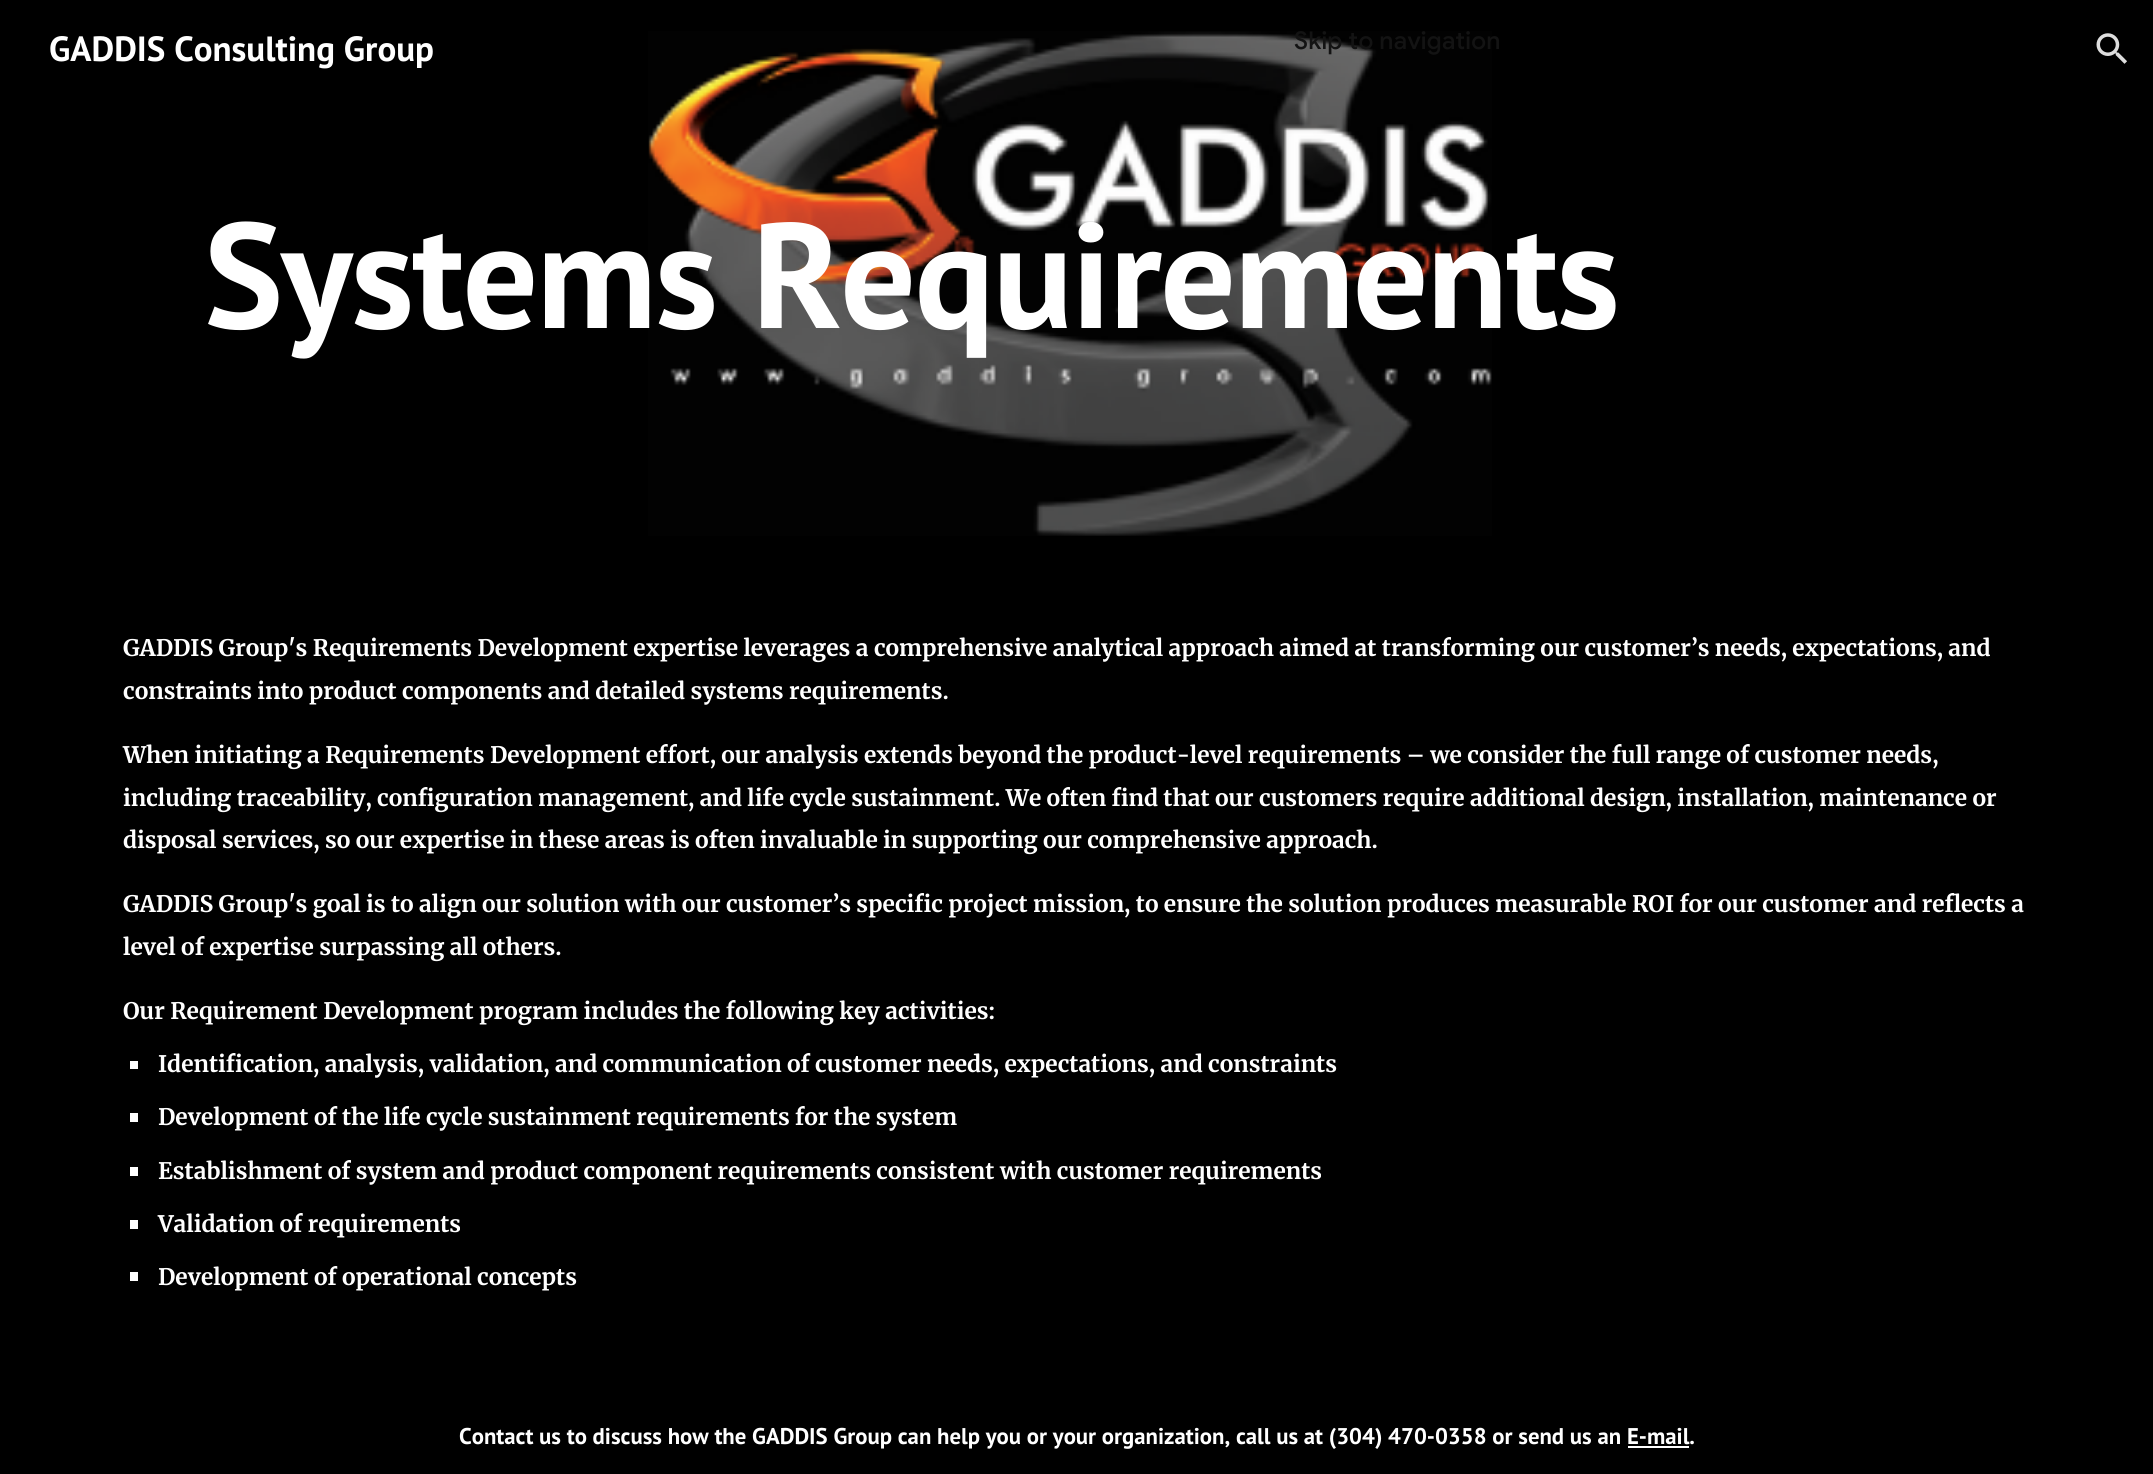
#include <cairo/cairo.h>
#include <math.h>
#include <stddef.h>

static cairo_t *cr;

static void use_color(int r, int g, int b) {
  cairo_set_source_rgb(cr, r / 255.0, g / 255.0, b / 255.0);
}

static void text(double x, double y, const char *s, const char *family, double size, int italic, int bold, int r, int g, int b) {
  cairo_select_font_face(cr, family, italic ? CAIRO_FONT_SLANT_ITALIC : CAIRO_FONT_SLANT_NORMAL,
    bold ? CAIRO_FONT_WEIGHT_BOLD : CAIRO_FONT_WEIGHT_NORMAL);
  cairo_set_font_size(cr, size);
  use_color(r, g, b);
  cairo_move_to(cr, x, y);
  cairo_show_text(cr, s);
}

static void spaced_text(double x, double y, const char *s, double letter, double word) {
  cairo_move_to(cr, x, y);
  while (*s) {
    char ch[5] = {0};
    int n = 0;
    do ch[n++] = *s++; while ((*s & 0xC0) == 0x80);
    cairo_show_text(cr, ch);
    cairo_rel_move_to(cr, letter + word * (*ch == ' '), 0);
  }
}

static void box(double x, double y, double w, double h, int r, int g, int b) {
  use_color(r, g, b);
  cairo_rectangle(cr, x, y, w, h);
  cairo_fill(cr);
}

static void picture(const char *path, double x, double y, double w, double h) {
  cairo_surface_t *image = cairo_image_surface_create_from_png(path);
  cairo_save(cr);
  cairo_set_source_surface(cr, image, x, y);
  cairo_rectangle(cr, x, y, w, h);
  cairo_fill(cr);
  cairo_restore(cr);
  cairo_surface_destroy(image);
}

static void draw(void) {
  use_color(0, 0, 0);
  cairo_paint(cr);
  picture("img_01.png", 2096, 33, 31, 31);
  picture("img_02.png", 648, 31, 844, 505);
  box(130, 1061, 8, 8, 255, 255, 255);
  box(130, 1113, 8, 9, 255, 255, 255);
  box(130, 1167, 8, 9, 255, 255, 255);
  box(130, 1220, 8, 9, 255, 255, 255);
  box(130, 1272, 8, 9, 255, 255, 255);
  box(1628, 1446, 61, 2, 255, 255, 255);
  cairo_select_font_face(cr, "Google Sans Medium", CAIRO_FONT_SLANT_NORMAL, CAIRO_FONT_WEIGHT_NORMAL);
  cairo_set_font_size(cr, 24.5);
  use_color(19, 19, 19);
  spaced_text(1294, 49, "Skip to navigation", 0.25, 0);
  text(49, 61, "GADDIS Consulting Group", "PT Sans", 35, 0, 1, 255, 255, 255);
  cairo_set_font_size(cr, 149.25);
  spaced_text(204, 328, "Systems Requirements", -1.75, 0);
  text(123, 656, "GADDIS Group's Requirements Development expertise leverages a comprehensive analytical approach aimed at transforming our customer’s needs, expectations, and", "Merriweather", 22.75, 0, 1, 255, 255, 255);
  text(123, 699, "constraints into product components and detailed systems requirements.", "Merriweather", 22.75, 0, 1, 255, 255, 255);
  text(123, 763, "When initiating a Requirements Development effort, our analysis extends beyond the product-level requirements – we consider the full range of customer needs,", "Merriweather", 22.75, 0, 1, 255, 255, 255);
  text(123, 806, "including traceability, configuration management, and life cycle sustainment. We often find that our customers require additional design, installation, maintenance or", "Merriweather", 22.75, 0, 1, 255, 255, 255);
  text(123, 848, "disposal services, so our expertise in these areas is often invaluable in supporting our comprehensive approach.", "Merriweather", 22.75, 0, 1, 255, 255, 255);
  text(123, 912, "GADDIS Group's goal is to align our solution with our customer’s specific project mission, to ensure the solution produces measurable ROI for our customer and reflects a", "Merriweather", 22.75, 0, 1, 255, 255, 255);
  text(123, 955, "level of expertise surpassing all others.", "Merriweather", 22.75, 0, 1, 255, 255, 255);
  text(123, 1019, "Our Requirement Development program includes the following key activities:", "Merriweather", 22.75, 0, 1, 255, 255, 255);
  text(158, 1072, "Identification, analysis, validation, and communication of customer needs, expectations, and constraints", "Merriweather", 22.75, 0, 1, 255, 255, 255);
  text(158, 1125, "Development of the life cycle sustainment requirements for the system", "Merriweather", 22.75, 0, 1, 255, 255, 255);
  text(158, 1179, "Establishment of system and product component requirements consistent with customer requirements", "Merriweather", 22.75, 0, 1, 255, 255, 255);
  text(158, 1232, "Validation of requirements", "Merriweather", 22.75, 0, 1, 255, 255, 255);
  text(158, 1285, "Development of operational concepts", "Merriweather", 22.75, 0, 1, 255, 255, 255);
  text(459, 1444, "Contact us to discuss how the GADDIS Group can help you or your organization, call us at (304) 470-0358 or send us an E-mail.", "PT Sans", 22.75, 0, 1, 255, 255, 255);
}

int main(void) {
  cairo_surface_t *surface = cairo_image_surface_create(CAIRO_FORMAT_RGB24, 2153, 1474);
  cr = cairo_create(surface);
  cairo_font_options_t *options = cairo_font_options_create();
  cairo_font_options_set_hint_metrics(options, CAIRO_HINT_METRICS_OFF);
  cairo_font_options_set_hint_style(options, CAIRO_HINT_STYLE_NONE);
  cairo_set_font_options(cr, options);
  cairo_set_miter_limit(cr, 4);
  draw();
  cairo_surface_write_to_png(surface, "out.png");
  cairo_font_options_destroy(options);
  cairo_destroy(cr);
  cairo_surface_destroy(surface);
  return 0;
}
